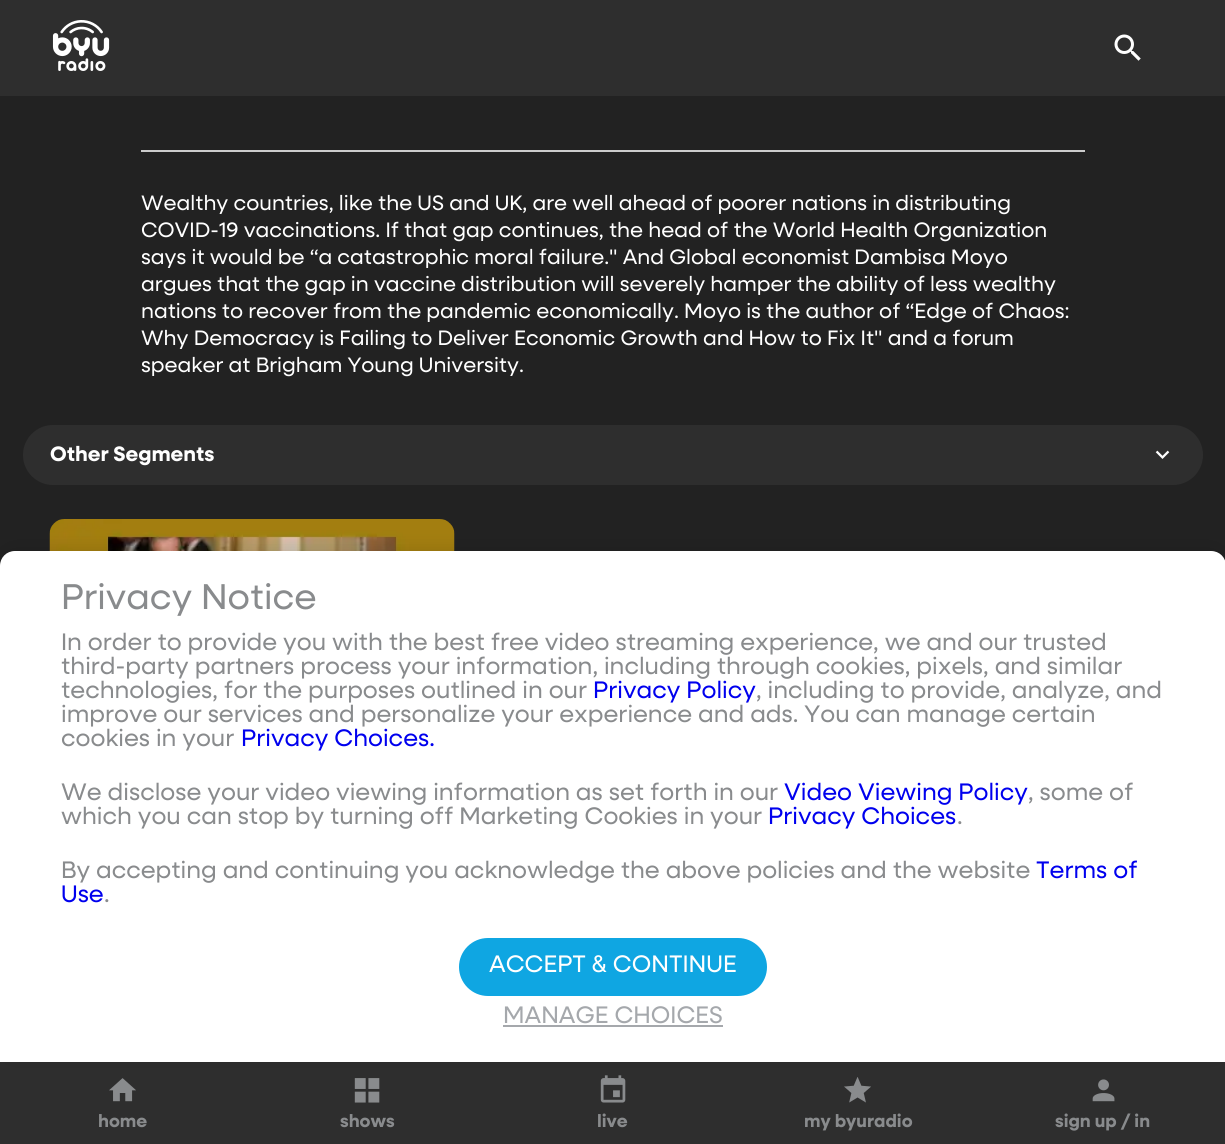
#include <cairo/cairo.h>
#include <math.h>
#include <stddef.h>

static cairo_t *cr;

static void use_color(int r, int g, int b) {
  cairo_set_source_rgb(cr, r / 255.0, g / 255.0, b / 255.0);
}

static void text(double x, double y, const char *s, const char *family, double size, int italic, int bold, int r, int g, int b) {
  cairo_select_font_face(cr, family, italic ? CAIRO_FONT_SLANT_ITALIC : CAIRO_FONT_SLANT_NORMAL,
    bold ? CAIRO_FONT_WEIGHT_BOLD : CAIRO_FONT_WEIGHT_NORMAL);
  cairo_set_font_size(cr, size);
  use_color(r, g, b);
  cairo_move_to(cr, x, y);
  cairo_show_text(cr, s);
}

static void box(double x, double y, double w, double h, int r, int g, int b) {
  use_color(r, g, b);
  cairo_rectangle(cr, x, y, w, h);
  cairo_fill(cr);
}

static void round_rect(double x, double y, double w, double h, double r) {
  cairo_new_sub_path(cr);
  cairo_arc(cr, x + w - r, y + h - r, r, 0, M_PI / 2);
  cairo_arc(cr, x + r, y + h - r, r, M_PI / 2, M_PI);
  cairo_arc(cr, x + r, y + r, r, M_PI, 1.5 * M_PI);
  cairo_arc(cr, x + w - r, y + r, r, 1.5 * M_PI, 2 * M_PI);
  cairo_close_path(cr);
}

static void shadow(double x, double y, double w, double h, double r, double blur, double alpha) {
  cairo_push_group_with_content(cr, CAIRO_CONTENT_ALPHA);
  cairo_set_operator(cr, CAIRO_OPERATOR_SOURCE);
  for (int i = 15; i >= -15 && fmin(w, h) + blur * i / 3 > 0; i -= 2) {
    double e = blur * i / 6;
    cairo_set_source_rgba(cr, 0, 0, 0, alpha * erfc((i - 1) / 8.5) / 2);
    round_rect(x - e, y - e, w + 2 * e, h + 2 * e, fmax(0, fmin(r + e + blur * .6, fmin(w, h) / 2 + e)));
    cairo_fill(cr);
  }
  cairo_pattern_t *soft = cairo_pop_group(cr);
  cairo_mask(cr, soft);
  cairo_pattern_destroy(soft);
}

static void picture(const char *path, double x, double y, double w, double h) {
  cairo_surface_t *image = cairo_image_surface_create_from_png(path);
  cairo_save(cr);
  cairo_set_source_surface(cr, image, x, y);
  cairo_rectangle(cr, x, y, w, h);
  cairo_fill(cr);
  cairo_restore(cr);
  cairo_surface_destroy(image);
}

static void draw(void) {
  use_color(34, 34, 34);
  cairo_paint(cr);
  box(0, 0, 1225, 96, 46, 46, 46);
  picture("img_01.png", 52, 20, 58, 51);
  picture("img_02.png", 1114, 34, 27, 27);
  box(141, 150, 944, 2, 204, 204, 204);
  use_color(46, 46, 46);
  round_rect(23, 425, 1180, 60, 30);
  cairo_fill(cr);
  picture("img_03.png", 1155, 450, 15, 9);
  picture("img_04.png", 49, 519, 406, 32);
  box(0, 1062, 1225, 82, 46, 46, 46);
  picture("img_05.png", 109, 1078, 27, 24);
  picture("img_06.png", 354, 1078, 26, 25);
  picture("img_07.png", 600, 1075, 26, 28);
  picture("img_08.png", 844, 1077, 27, 26);
  picture("img_09.png", 1092, 1079, 23, 23);
  use_color(0, 0, 0);
  shadow(0, 548, 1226, 511, 15, 7.5, 0.1);
  use_color(255, 255, 255);
  cairo_new_path(cr);
  cairo_move_to(cr, 15, 551);
  cairo_line_to(cr, 1211, 551);
  cairo_curve_to(cr, 1219.5, 551, 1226, 557.5, 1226, 566);
  cairo_line_to(cr, 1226, 1062);
  cairo_line_to(cr, 0, 1062);
  cairo_line_to(cr, 0, 566);
  cairo_curve_to(cr, 0, 557.5, 6.5, 551, 15, 551);
  cairo_close_path(cr);
  cairo_fill(cr);
  use_color(15, 166, 226);
  round_rect(459, 938, 308, 58, 29);
  cairo_fill(cr);
  box(503, 1025, 220, 2, 165, 168, 172);
  text(141, 210, "Wealthy countries, like the US and UK, are well ahead of poorer nations in distributing", "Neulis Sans", 21, 0, 0, 255, 255, 255);
  text(141, 237, "COVID-19 vaccinations. If that gap continues, the head of the World Health Organization", "Neulis Sans", 21, 0, 0, 255, 255, 255);
  text(141, 264, "says it would be “a catastrophic moral failure.\" And Global economist Dambisa Moyo", "Neulis Sans", 21, 0, 0, 255, 255, 255);
  text(141, 291, "argues that the gap in vaccine distribution will severely hamper the ability of less wealthy", "Neulis Sans", 21, 0, 0, 255, 255, 255);
  text(141, 318, "nations to recover from the pandemic economically. Moyo is the author of “Edge of Chaos:", "Neulis Sans", 21, 0, 0, 255, 255, 255);
  text(141, 345, "Why Democracy is Failing to Deliver Economic Growth and How to Fix It\" and a forum", "Neulis Sans", 21, 0, 0, 255, 255, 255);
  text(141, 372, "speaker at Brigham Young University.", "Neulis Sans", 21, 0, 0, 255, 255, 255);
  text(50, 461, "Other Segments", "Neulis Sans", 21, 0, 1, 255, 255, 255);
  text(61, 609, "Privacy Notice", "Neulis Sans", 36, 0, 0, 137, 139, 141);
  text(61, 650, "In order to provide you with the best free video streaming experience, we and our trusted", "Neulis Sans", 24, 0, 0, 137, 139, 141);
  text(61, 674, "third-party partners process your information, including through cookies, pixels, and similar", "Neulis Sans", 24, 0, 0, 137, 139, 141);
  text(61, 698, "technologies, for the purposes outlined in our", "Neulis Sans", 24, 0, 0, 137, 139, 141);
  text(593, 698, "Privacy Policy", "Neulis Sans", 24, 0, 0, 0, 0, 238);
  text(756, 698, ", including to provide, analyze, and", "Neulis Sans", 24, 0, 0, 137, 139, 141);
  text(61, 722, "improve our services and personalize your experience and ads. You can manage certain", "Neulis Sans", 24, 0, 0, 137, 139, 141);
  text(61, 746, "cookies in your", "Neulis Sans", 24, 0, 0, 137, 139, 141);
  text(241, 746, "Privacy Choices.", "Neulis Sans", 24, 0, 0, 0, 0, 238);
  text(61, 800, "We disclose your video viewing information as set forth in our", "Neulis Sans", 24, 0, 0, 137, 139, 141);
  text(784, 800, "Video Viewing Policy", "Neulis Sans", 24, 0, 0, 0, 0, 238);
  text(1028, 800, ", some of", "Neulis Sans", 24, 0, 0, 137, 139, 141);
  text(61, 824, "which you can stop by turning off Marketing Cookies in your", "Neulis Sans", 24, 0, 0, 137, 139, 141);
  text(768, 824, "Privacy Choices", "Neulis Sans", 24, 0, 0, 0, 0, 238);
  text(957, 824, ".", "Neulis Sans", 24, 0, 0, 137, 139, 141);
  text(61, 878, "By accepting and continuing you acknowledge the above policies and the website", "Neulis Sans", 24, 0, 0, 137, 139, 141);
  text(1036, 878, "Terms of", "Neulis Sans", 24, 0, 0, 0, 0, 238);
  text(61, 902, "Use", "Neulis Sans", 24, 0, 0, 0, 0, 238);
  text(104, 902, ".", "Neulis Sans", 24, 0, 0, 137, 139, 141);
  text(489, 972, "ACCEPT & CONTINUE", "Neulis Sans", 24, 0, 0, 255, 255, 255);
  text(503, 1023, "MANAGE CHOICES", "Neulis Sans", 24, 0, 0, 165, 168, 172);
  text(98, 1127, "home", "Neulis Sans", 18, 0, 1, 137, 139, 141);
  text(340, 1127, "shows", "Neulis Sans", 18, 0, 1, 137, 139, 141);
  text(597, 1127, "live", "Neulis Sans", 18, 0, 1, 137, 139, 141);
  text(804, 1127, "my byuradio", "Neulis Sans", 18, 0, 1, 137, 139, 141);
  text(1055, 1127, "sign up / in", "Neulis Sans", 18, 0, 1, 137, 139, 141);
}

int main(void) {
  cairo_surface_t *surface = cairo_image_surface_create(CAIRO_FORMAT_RGB24, 1225, 1144);
  cr = cairo_create(surface);
  cairo_font_options_t *options = cairo_font_options_create();
  cairo_font_options_set_hint_metrics(options, CAIRO_HINT_METRICS_OFF);
  cairo_font_options_set_hint_style(options, CAIRO_HINT_STYLE_NONE);
  cairo_set_font_options(cr, options);
  cairo_set_miter_limit(cr, 4);
  draw();
  cairo_surface_write_to_png(surface, "out.png");
  cairo_font_options_destroy(options);
  cairo_destroy(cr);
  cairo_surface_destroy(surface);
  return 0;
}
